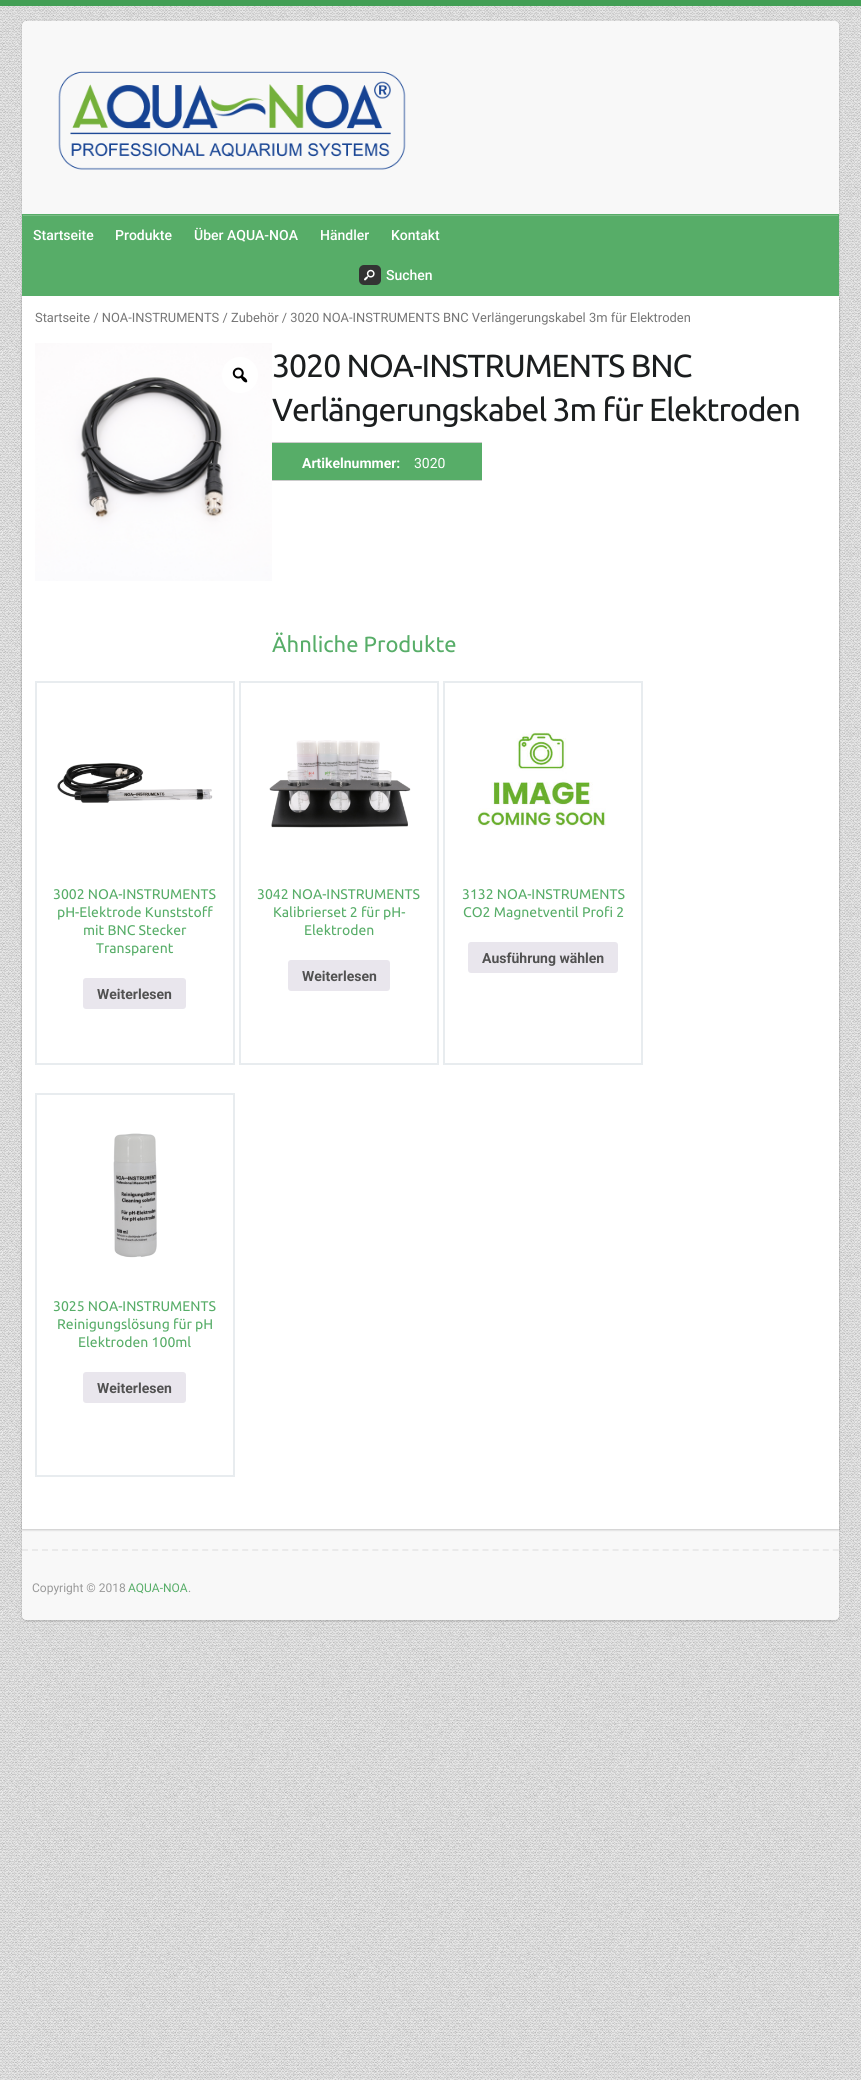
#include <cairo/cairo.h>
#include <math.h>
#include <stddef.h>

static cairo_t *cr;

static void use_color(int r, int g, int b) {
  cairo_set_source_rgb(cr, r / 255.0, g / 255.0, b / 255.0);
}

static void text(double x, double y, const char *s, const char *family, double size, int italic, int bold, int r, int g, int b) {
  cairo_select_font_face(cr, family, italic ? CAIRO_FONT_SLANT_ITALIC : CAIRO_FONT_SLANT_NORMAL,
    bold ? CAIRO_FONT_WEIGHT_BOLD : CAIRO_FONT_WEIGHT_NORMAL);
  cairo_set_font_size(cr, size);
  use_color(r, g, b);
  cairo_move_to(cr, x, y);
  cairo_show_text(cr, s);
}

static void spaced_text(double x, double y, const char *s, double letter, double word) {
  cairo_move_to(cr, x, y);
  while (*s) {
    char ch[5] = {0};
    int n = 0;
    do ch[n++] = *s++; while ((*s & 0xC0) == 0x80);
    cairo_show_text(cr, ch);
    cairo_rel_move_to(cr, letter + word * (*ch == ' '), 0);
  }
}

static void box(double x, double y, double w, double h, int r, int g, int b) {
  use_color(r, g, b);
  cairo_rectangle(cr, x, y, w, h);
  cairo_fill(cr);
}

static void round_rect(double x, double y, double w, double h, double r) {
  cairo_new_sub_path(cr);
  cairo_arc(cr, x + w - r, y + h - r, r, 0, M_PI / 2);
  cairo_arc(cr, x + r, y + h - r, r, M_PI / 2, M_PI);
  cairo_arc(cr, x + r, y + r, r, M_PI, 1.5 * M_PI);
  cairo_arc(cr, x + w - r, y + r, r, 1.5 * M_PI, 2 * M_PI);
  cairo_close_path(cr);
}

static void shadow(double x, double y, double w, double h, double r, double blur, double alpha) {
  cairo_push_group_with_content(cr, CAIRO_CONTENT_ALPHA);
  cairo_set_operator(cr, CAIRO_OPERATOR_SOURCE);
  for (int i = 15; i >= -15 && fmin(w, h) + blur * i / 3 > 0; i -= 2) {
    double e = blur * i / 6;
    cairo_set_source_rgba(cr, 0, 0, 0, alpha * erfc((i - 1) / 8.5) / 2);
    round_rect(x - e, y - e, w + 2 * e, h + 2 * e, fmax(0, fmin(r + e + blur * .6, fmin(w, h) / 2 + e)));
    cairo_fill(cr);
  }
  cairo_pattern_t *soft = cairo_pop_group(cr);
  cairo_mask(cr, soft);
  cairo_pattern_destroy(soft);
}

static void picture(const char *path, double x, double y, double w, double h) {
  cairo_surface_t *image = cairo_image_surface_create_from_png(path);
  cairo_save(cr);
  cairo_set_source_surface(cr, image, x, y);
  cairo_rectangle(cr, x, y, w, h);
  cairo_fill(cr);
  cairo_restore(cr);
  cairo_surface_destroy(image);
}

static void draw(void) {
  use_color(255, 255, 255);
  cairo_paint(cr);
  picture("img_01.png", 0, 6, 861, 2074);
  box(0, 0, 861, 6, 67, 159, 85);
  use_color(0, 0, 0);
  shadow(22, 22, 817, 1599, 4, 1, 0.2);
  use_color(248, 248, 248);
  round_rect(22, 21, 817, 1599, 4);
  cairo_fill(cr);
  picture("img_02.png", 58, 71, 348, 99);
  use_color(0, 0, 0);
  shadow(22, 297, 817, 1233, 0, 1, 0.2);
  box(22, 214, 817, 82, 87, 173, 104);
  box(23, 215, 815, 1, 121, 189, 134);
  use_color(51, 51, 51);
  round_rect(359, 265, 22, 20, 5);
  cairo_fill(cr);
  picture("img_03.png", 364, 269, 11, 12);
  box(22, 296, 817, 1233, 255, 255, 255);
  picture("img_04.png", 35, 343, 237, 238);
  cairo_arc(cr, 240, 375, 18, 0, 2 * M_PI);
  cairo_fill(cr);
  picture("img_05.png", 232, 367, 16, 16);
  box(272, 443, 210, 37, 87, 173, 104);
  box(272, 442, 210, 1, 204, 204, 204);
  box(272, 480, 210, 1, 204, 204, 204);
  cairo_rectangle(cr, 36, 682, 198, 382);
  use_color(232, 236, 239);
  cairo_stroke(cr);
  picture("img_06.png", 57, 763, 156, 40);
  use_color(233, 230, 237);
  round_rect(83, 978, 103, 31, 3);
  cairo_fill(cr);
  cairo_rectangle(cr, 240, 682, 198, 382);
  use_color(232, 236, 239);
  cairo_stroke(cr);
  picture("img_07.png", 269, 740, 142, 88);
  use_color(233, 230, 237);
  round_rect(288, 960, 102, 31, 3);
  cairo_fill(cr);
  cairo_rectangle(cr, 444, 682, 198, 382);
  use_color(232, 236, 239);
  cairo_stroke(cr);
  picture("img_08.png", 477, 730, 129, 97);
  use_color(233, 230, 237);
  round_rect(468, 942, 150, 31, 3);
  cairo_fill(cr);
  cairo_rectangle(cr, 36, 1094, 198, 382);
  use_color(232, 236, 239);
  cairo_stroke(cr);
  picture("img_09.png", 113, 1133, 44, 125);
  use_color(233, 230, 237);
  round_rect(83, 1372, 103, 31, 3);
  cairo_fill(cr);
  cairo_new_path(cr);
  cairo_move_to(cr, 22, 1550);
  cairo_line_to(cr, 839, 1550);
  use_color(234, 234, 234);
  cairo_set_dash(cr, (double[]){6, 4.01}, 2, 0);
  cairo_stroke(cr);
  text(33, 240, "Startseite", "Roboto Medium", 14, 0, 0, 255, 255, 255);
  text(115, 240, "Produkte", "Roboto Medium", 14, 0, 0, 255, 255, 255);
  text(194, 240, "Über AQUA-NOA", "Roboto Medium", 14, 0, 0, 255, 255, 255);
  text(320, 240, "Händler", "Roboto Medium", 14, 0, 0, 255, 255, 255);
  text(391, 240, "Kontakt", "Roboto Medium", 14, 0, 0, 255, 255, 255);
  text(386, 280, "Suchen", "Roboto Medium", 14, 0, 0, 255, 255, 255);
  text(35, 322, "Startseite / NOA-INSTRUMENTS / Zubehör / 3020 NOA-INSTRUMENTS BNC Verlängerungskabel 3m für Elektroden", "Roboto", 12.88, 0, 0, 118, 118, 118);
  cairo_select_font_face(cr, "Ubuntu", CAIRO_FONT_SLANT_NORMAL, CAIRO_FONT_WEIGHT_NORMAL);
  cairo_set_font_size(cr, 32);
  use_color(27, 30, 31);
  spaced_text(272, 377, "3020 NOA-INSTRUMENTS BNC", -1, 0);
  spaced_text(272, 421, "Verlängerungskabel 3m für Elektroden", -1, 0);
  text(302, 468, "Artikelnummer:", "Roboto", 14, 0, 1, 255, 255, 255);
  text(414, 468, "3020", "Roboto", 14, 0, 0, 255, 255, 255);
  text(272, 652, "Ähnliche Produkte", "Ubuntu", 22, 0, 0, 87, 173, 104);
  text(53, 899, "3002 NOA-INSTRUMENTS", "Ubuntu", 14, 0, 0, 87, 173, 104);
  text(57, 917, "pH-Elektrode Kunststoff", "Ubuntu", 14, 0, 0, 87, 173, 104);
  text(83, 935, "mit BNC Stecker", "Ubuntu", 14, 0, 0, 87, 173, 104);
  text(96, 953, "Transparent", "Ubuntu", 14, 0, 0, 87, 173, 104);
  text(97, 999, "Weiterlesen", "Roboto", 14, 0, 1, 81, 81, 81);
  text(257, 899, "3042 NOA-INSTRUMENTS", "Ubuntu", 14, 0, 0, 87, 173, 104);
  text(273, 917, "Kalibrierset 2 für pH-", "Ubuntu", 14, 0, 0, 87, 173, 104);
  text(304, 935, "Elektroden", "Ubuntu", 14, 0, 0, 87, 173, 104);
  text(302, 981, "Weiterlesen", "Roboto", 14, 0, 1, 81, 81, 81);
  text(462, 899, "3132 NOA-INSTRUMENTS", "Ubuntu", 14, 0, 0, 87, 173, 104);
  text(463, 917, "CO2 Magnetventil Profi 2", "Ubuntu", 14, 0, 0, 87, 173, 104);
  text(482, 963, "Ausführung wählen", "Roboto", 14, 0, 1, 81, 81, 81);
  text(53, 1311, "3025 NOA-INSTRUMENTS", "Ubuntu", 14, 0, 0, 87, 173, 104);
  text(57, 1329, "Reinigungslösung für pH", "Ubuntu", 14, 0, 0, 87, 173, 104);
  text(78, 1347, "Elektroden 100ml", "Ubuntu", 14, 0, 0, 87, 173, 104);
  text(97, 1393, "Weiterlesen", "Roboto", 14, 0, 1, 81, 81, 81);
  text(32, 1592, "Copyright © 2018", "Roboto", 12, 0, 0, 153, 153, 153);
  text(128, 1592, "AQUA-NOA", "Roboto", 12, 0, 0, 87, 173, 104);
  text(188, 1592, ".", "Roboto", 12, 0, 0, 153, 153, 153);
}

int main(void) {
  cairo_surface_t *surface = cairo_image_surface_create(CAIRO_FORMAT_RGB24, 861, 2080);
  cr = cairo_create(surface);
  cairo_font_options_t *options = cairo_font_options_create();
  cairo_font_options_set_hint_metrics(options, CAIRO_HINT_METRICS_OFF);
  cairo_font_options_set_hint_style(options, CAIRO_HINT_STYLE_NONE);
  cairo_set_font_options(cr, options);
  cairo_set_miter_limit(cr, 4);
  draw();
  cairo_surface_write_to_png(surface, "out.png");
  cairo_font_options_destroy(options);
  cairo_destroy(cr);
  cairo_surface_destroy(surface);
  return 0;
}
